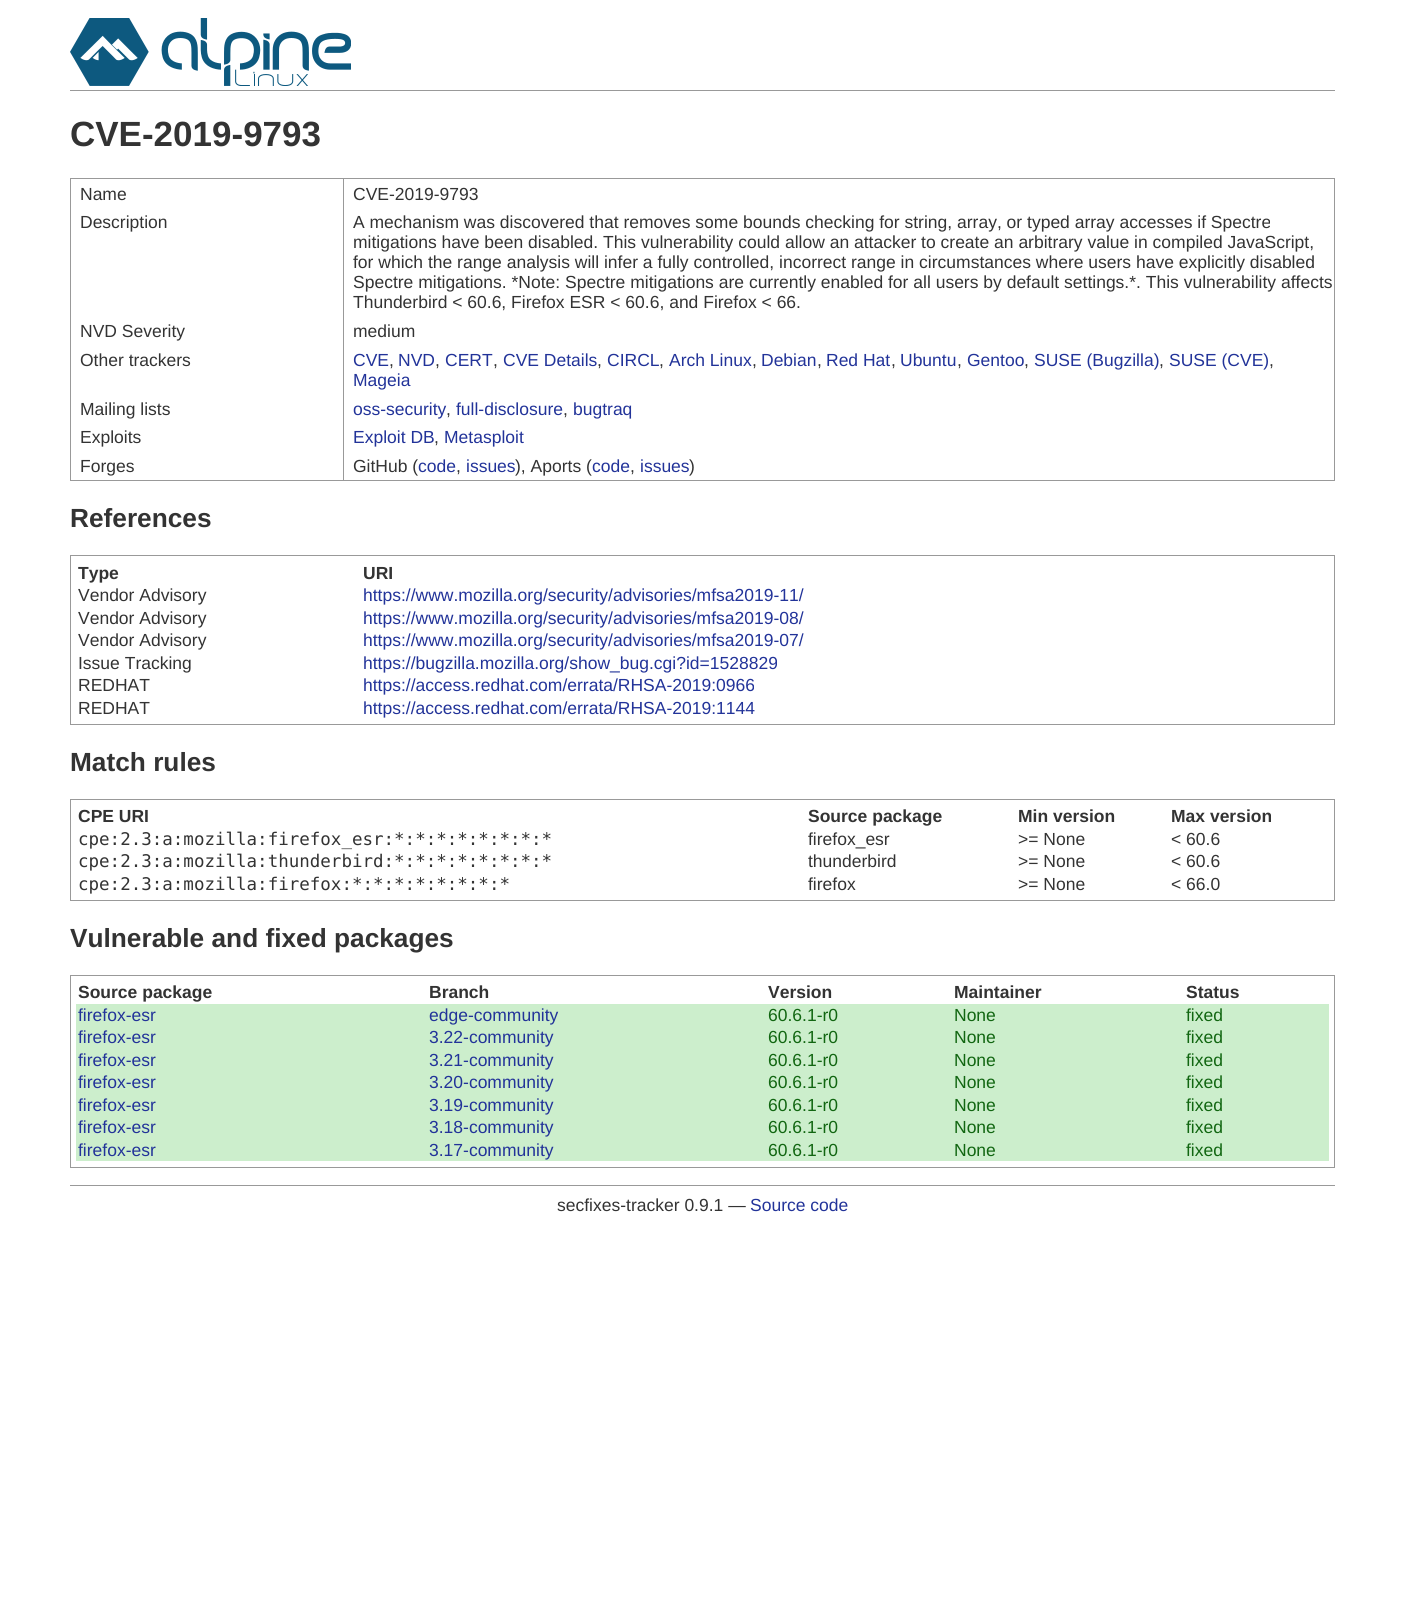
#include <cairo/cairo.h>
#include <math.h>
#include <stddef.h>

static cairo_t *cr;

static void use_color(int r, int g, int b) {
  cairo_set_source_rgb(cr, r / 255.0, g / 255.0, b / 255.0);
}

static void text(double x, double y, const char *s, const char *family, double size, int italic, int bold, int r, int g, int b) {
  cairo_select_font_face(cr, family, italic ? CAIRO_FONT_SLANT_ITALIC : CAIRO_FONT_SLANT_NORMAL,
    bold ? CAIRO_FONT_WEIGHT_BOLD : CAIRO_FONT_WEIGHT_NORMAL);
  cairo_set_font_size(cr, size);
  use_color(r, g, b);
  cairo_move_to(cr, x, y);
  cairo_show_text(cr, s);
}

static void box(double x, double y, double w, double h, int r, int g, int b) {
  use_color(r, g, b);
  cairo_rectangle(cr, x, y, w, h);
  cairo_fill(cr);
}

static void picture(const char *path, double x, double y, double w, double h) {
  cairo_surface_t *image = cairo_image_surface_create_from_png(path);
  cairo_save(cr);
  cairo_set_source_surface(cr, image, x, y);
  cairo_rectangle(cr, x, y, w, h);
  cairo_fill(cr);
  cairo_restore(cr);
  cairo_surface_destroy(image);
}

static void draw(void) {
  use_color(255, 255, 255);
  cairo_paint(cr);
  box(70, 90, 1265, 1, 153, 153, 153);
  picture("img_01.png", 70, 18, 281, 68);
  cairo_rectangle(cr, 70.5, 178.5, 1264, 302);
  cairo_set_line_width(cr, 1);
  cairo_stroke(cr);
  box(343, 179, 1, 301, 153, 153, 153);
  cairo_rectangle(cr, 70.5, 555.5, 1264, 169);
  cairo_stroke(cr);
  cairo_rectangle(cr, 70.5, 799.5, 1264, 101);
  cairo_stroke(cr);
  cairo_rectangle(cr, 70.5, 975.5, 1264, 192);
  cairo_stroke(cr);
  box(76, 1004, 1253, 157, 204, 238, 204);
  box(70, 1185, 1265, 1, 153, 153, 153);
  text(70, 146, "CVE-2019-9793", "Liberation Sans", 35, 0, 1, 51, 51, 51);
  text(80, 200, "Name", "Liberation Sans", 17.5, 0, 0, 51, 51, 51);
  text(353, 200, "CVE-2019-9793", "Liberation Sans", 17.5, 0, 0, 51, 51, 51);
  text(80, 228, "Description", "Liberation Sans", 17.5, 0, 0, 51, 51, 51);
  text(353, 228, "A mechanism was discovered that removes some bounds checking for string, array, or typed array accesses if Spectre", "Liberation Sans", 17.5, 0, 0, 51, 51, 51);
  text(353, 248, "mitigations have been disabled. This vulnerability could allow an attacker to create an arbitrary value in compiled JavaScript,", "Liberation Sans", 17.5, 0, 0, 51, 51, 51);
  text(353, 268, "for which the range analysis will infer a fully controlled, incorrect range in circumstances where users have explicitly disabled", "Liberation Sans", 17.5, 0, 0, 51, 51, 51);
  text(353, 288, "Spectre mitigations. *Note: Spectre mitigations are currently enabled for all users by default settings.*. This vulnerability affects", "Liberation Sans", 17.5, 0, 0, 51, 51, 51);
  text(353, 308, "Thunderbird < 60.6, Firefox ESR < 60.6, and Firefox < 66.", "Liberation Sans", 17.5, 0, 0, 51, 51, 51);
  text(80, 337, "NVD Severity", "Liberation Sans", 17.5, 0, 0, 51, 51, 51);
  text(353, 337, "medium", "Liberation Sans", 17.5, 0, 0, 51, 51, 51);
  text(80, 366, "Other trackers", "Liberation Sans", 17.5, 0, 0, 51, 51, 51);
  text(353, 366, "CVE", "Liberation Sans", 17.5, 0, 0, 34, 51, 153);
  text(389, 366, ",", "Liberation Sans", 17.5, 0, 0, 51, 51, 51);
  text(398, 366, "NVD", "Liberation Sans", 17.5, 0, 0, 34, 51, 153);
  text(435, 366, ",", "Liberation Sans", 17.5, 0, 0, 51, 51, 51);
  text(445, 366, "CERT", "Liberation Sans", 17.5, 0, 0, 34, 51, 153);
  text(493, 366, ",", "Liberation Sans", 17.5, 0, 0, 51, 51, 51);
  text(503, 366, "CVE Details", "Liberation Sans", 17.5, 0, 0, 34, 51, 153);
  text(597, 366, ",", "Liberation Sans", 17.5, 0, 0, 51, 51, 51);
  text(607, 366, "CIRCL", "Liberation Sans", 17.5, 0, 0, 34, 51, 153);
  text(659, 366, ",", "Liberation Sans", 17.5, 0, 0, 51, 51, 51);
  text(669, 366, "Arch Linux", "Liberation Sans", 17.5, 0, 0, 34, 51, 153);
  text(752, 366, ",", "Liberation Sans", 17.5, 0, 0, 51, 51, 51);
  text(761, 366, "Debian", "Liberation Sans", 17.5, 0, 0, 34, 51, 153);
  text(817, 366, ",", "Liberation Sans", 17.5, 0, 0, 51, 51, 51);
  text(826, 366, "Red Hat", "Liberation Sans", 17.5, 0, 0, 34, 51, 153);
  text(891, 366, ",", "Liberation Sans", 17.5, 0, 0, 51, 51, 51);
  text(900, 366, "Ubuntu", "Liberation Sans", 17.5, 0, 0, 34, 51, 153);
  text(957, 366, ",", "Liberation Sans", 17.5, 0, 0, 51, 51, 51);
  text(967, 366, "Gentoo", "Liberation Sans", 17.5, 0, 0, 34, 51, 153);
  text(1024, 366, ",", "Liberation Sans", 17.5, 0, 0, 51, 51, 51);
  text(1034, 366, "SUSE (Bugzilla)", "Liberation Sans", 17.5, 0, 0, 34, 51, 153);
  text(1159, 366, ",", "Liberation Sans", 17.5, 0, 0, 51, 51, 51);
  text(1169, 366, "SUSE (CVE)", "Liberation Sans", 17.5, 0, 0, 34, 51, 153);
  text(1269, 366, ",", "Liberation Sans", 17.5, 0, 0, 51, 51, 51);
  text(353, 386, "Mageia", "Liberation Sans", 17.5, 0, 0, 34, 51, 153);
  text(80, 415, "Mailing lists", "Liberation Sans", 17.5, 0, 0, 51, 51, 51);
  text(353, 415, "oss-security", "Liberation Sans", 17.5, 0, 0, 34, 51, 153);
  text(446, 415, ",", "Liberation Sans", 17.5, 0, 0, 51, 51, 51);
  text(456, 415, "full-disclosure", "Liberation Sans", 17.5, 0, 0, 34, 51, 153);
  text(563, 415, ",", "Liberation Sans", 17.5, 0, 0, 51, 51, 51);
  text(573, 415, "bugtraq", "Liberation Sans", 17.5, 0, 0, 34, 51, 153);
  text(80, 443, "Exploits", "Liberation Sans", 17.5, 0, 0, 51, 51, 51);
  text(353, 443, "Exploit DB", "Liberation Sans", 17.5, 0, 0, 34, 51, 153);
  text(434, 443, ",", "Liberation Sans", 17.5, 0, 0, 51, 51, 51);
  text(444, 443, "Metasploit", "Liberation Sans", 17.5, 0, 0, 34, 51, 153);
  text(80, 472, "Forges", "Liberation Sans", 17.5, 0, 0, 51, 51, 51);
  text(353, 472, "GitHub (", "Liberation Sans", 17.5, 0, 0, 51, 51, 51);
  text(418, 472, "code", "Liberation Sans", 17.5, 0, 0, 34, 51, 153);
  text(456, 472, ",", "Liberation Sans", 17.5, 0, 0, 51, 51, 51);
  text(466, 472, "issues", "Liberation Sans", 17.5, 0, 0, 34, 51, 153);
  text(515, 472, "), Aports (", "Liberation Sans", 17.5, 0, 0, 51, 51, 51);
  text(592, 472, "code", "Liberation Sans", 17.5, 0, 0, 34, 51, 153);
  text(630, 472, ",", "Liberation Sans", 17.5, 0, 0, 51, 51, 51);
  text(640, 472, "issues", "Liberation Sans", 17.5, 0, 0, 34, 51, 153);
  text(689, 472, ")", "Liberation Sans", 17.5, 0, 0, 51, 51, 51);
  text(70, 527, "References", "Liberation Sans", 26.25, 0, 1, 51, 51, 51);
  text(78, 579, "Type", "Liberation Sans", 17.5, 0, 1, 51, 51, 51);
  text(363, 579, "URI", "Liberation Sans", 17.5, 0, 1, 51, 51, 51);
  text(78, 601, "Vendor Advisory", "Liberation Sans", 17.5, 0, 0, 51, 51, 51);
  text(363, 601, "https://www.mozilla.org/security/advisories/mfsa2019-11/", "Liberation Sans", 17.5, 0, 0, 34, 51, 153);
  text(78, 624, "Vendor Advisory", "Liberation Sans", 17.5, 0, 0, 51, 51, 51);
  text(363, 624, "https://www.mozilla.org/security/advisories/mfsa2019-08/", "Liberation Sans", 17.5, 0, 0, 34, 51, 153);
  text(78, 646, "Vendor Advisory", "Liberation Sans", 17.5, 0, 0, 51, 51, 51);
  text(363, 646, "https://www.mozilla.org/security/advisories/mfsa2019-07/", "Liberation Sans", 17.5, 0, 0, 34, 51, 153);
  text(78, 669, "Issue Tracking", "Liberation Sans", 17.5, 0, 0, 51, 51, 51);
  text(363, 669, "https://bugzilla.mozilla.org/show_bug.cgi?id=1528829", "Liberation Sans", 17.5, 0, 0, 34, 51, 153);
  text(78, 691, "REDHAT", "Liberation Sans", 17.5, 0, 0, 51, 51, 51);
  text(363, 691, "https://access.redhat.com/errata/RHSA-2019:0966", "Liberation Sans", 17.5, 0, 0, 34, 51, 153);
  text(78, 714, "REDHAT", "Liberation Sans", 17.5, 0, 0, 51, 51, 51);
  text(363, 714, "https://access.redhat.com/errata/RHSA-2019:1144", "Liberation Sans", 17.5, 0, 0, 34, 51, 153);
  text(70, 771, "Match rules", "Liberation Sans", 26.25, 0, 1, 51, 51, 51);
  text(78, 822, "CPE URI", "Liberation Sans", 17.5, 0, 1, 51, 51, 51);
  text(808, 822, "Source package", "Liberation Sans", 17.5, 0, 1, 51, 51, 51);
  text(1018, 822, "Min version", "Liberation Sans", 17.5, 0, 1, 51, 51, 51);
  text(1171, 822, "Max version", "Liberation Sans", 17.5, 0, 1, 51, 51, 51);
  text(78, 845, "cpe:2.3:a:mozilla:firefox_esr:*:*:*:*:*:*:*:*", "DejaVu Sans Mono", 17.5, 0, 0, 51, 51, 51);
  text(808, 845, "firefox_esr", "Liberation Sans", 17.5, 0, 0, 51, 51, 51);
  text(1018, 845, ">= None", "Liberation Sans", 17.5, 0, 0, 51, 51, 51);
  text(1171, 845, "< 60.6", "Liberation Sans", 17.5, 0, 0, 51, 51, 51);
  text(78, 867, "cpe:2.3:a:mozilla:thunderbird:*:*:*:*:*:*:*:*", "DejaVu Sans Mono", 17.5, 0, 0, 51, 51, 51);
  text(808, 867, "thunderbird", "Liberation Sans", 17.5, 0, 0, 51, 51, 51);
  text(1018, 867, ">= None", "Liberation Sans", 17.5, 0, 0, 51, 51, 51);
  text(1171, 867, "< 60.6", "Liberation Sans", 17.5, 0, 0, 51, 51, 51);
  text(78, 890, "cpe:2.3:a:mozilla:firefox:*:*:*:*:*:*:*:*", "DejaVu Sans Mono", 17.5, 0, 0, 51, 51, 51);
  text(808, 890, "firefox", "Liberation Sans", 17.5, 0, 0, 51, 51, 51);
  text(1018, 890, ">= None", "Liberation Sans", 17.5, 0, 0, 51, 51, 51);
  text(1171, 890, "< 66.0", "Liberation Sans", 17.5, 0, 0, 51, 51, 51);
  text(70, 947, "Vulnerable and fixed packages", "Liberation Sans", 26.25, 0, 1, 51, 51, 51);
  text(78, 998, "Source package", "Liberation Sans", 17.5, 0, 1, 51, 51, 51);
  text(429, 998, "Branch", "Liberation Sans", 17.5, 0, 1, 51, 51, 51);
  text(768, 998, "Version", "Liberation Sans", 17.5, 0, 1, 51, 51, 51);
  text(954, 998, "Maintainer", "Liberation Sans", 17.5, 0, 1, 51, 51, 51);
  text(1186, 998, "Status", "Liberation Sans", 17.5, 0, 1, 51, 51, 51);
  text(78, 1021, "firefox-esr", "Liberation Sans", 17.5, 0, 0, 34, 51, 153);
  text(429, 1021, "edge-community", "Liberation Sans", 17.5, 0, 0, 34, 51, 153);
  text(768, 1021, "60.6.1-r0", "Liberation Sans", 17.5, 0, 0, 17, 102, 17);
  text(954, 1021, "None", "Liberation Sans", 17.5, 0, 0, 17, 102, 17);
  text(1186, 1021, "fixed", "Liberation Sans", 17.5, 0, 0, 17, 102, 17);
  text(78, 1043, "firefox-esr", "Liberation Sans", 17.5, 0, 0, 34, 51, 153);
  text(429, 1043, "3.22-community", "Liberation Sans", 17.5, 0, 0, 34, 51, 153);
  text(768, 1043, "60.6.1-r0", "Liberation Sans", 17.5, 0, 0, 17, 102, 17);
  text(954, 1043, "None", "Liberation Sans", 17.5, 0, 0, 17, 102, 17);
  text(1186, 1043, "fixed", "Liberation Sans", 17.5, 0, 0, 17, 102, 17);
  text(78, 1066, "firefox-esr", "Liberation Sans", 17.5, 0, 0, 34, 51, 153);
  text(429, 1066, "3.21-community", "Liberation Sans", 17.5, 0, 0, 34, 51, 153);
  text(768, 1066, "60.6.1-r0", "Liberation Sans", 17.5, 0, 0, 17, 102, 17);
  text(954, 1066, "None", "Liberation Sans", 17.5, 0, 0, 17, 102, 17);
  text(1186, 1066, "fixed", "Liberation Sans", 17.5, 0, 0, 17, 102, 17);
  text(78, 1088, "firefox-esr", "Liberation Sans", 17.5, 0, 0, 34, 51, 153);
  text(429, 1088, "3.20-community", "Liberation Sans", 17.5, 0, 0, 34, 51, 153);
  text(768, 1088, "60.6.1-r0", "Liberation Sans", 17.5, 0, 0, 17, 102, 17);
  text(954, 1088, "None", "Liberation Sans", 17.5, 0, 0, 17, 102, 17);
  text(1186, 1088, "fixed", "Liberation Sans", 17.5, 0, 0, 17, 102, 17);
  text(78, 1111, "firefox-esr", "Liberation Sans", 17.5, 0, 0, 34, 51, 153);
  text(429, 1111, "3.19-community", "Liberation Sans", 17.5, 0, 0, 34, 51, 153);
  text(768, 1111, "60.6.1-r0", "Liberation Sans", 17.5, 0, 0, 17, 102, 17);
  text(954, 1111, "None", "Liberation Sans", 17.5, 0, 0, 17, 102, 17);
  text(1186, 1111, "fixed", "Liberation Sans", 17.5, 0, 0, 17, 102, 17);
  text(78, 1133, "firefox-esr", "Liberation Sans", 17.5, 0, 0, 34, 51, 153);
  text(429, 1133, "3.18-community", "Liberation Sans", 17.5, 0, 0, 34, 51, 153);
  text(768, 1133, "60.6.1-r0", "Liberation Sans", 17.5, 0, 0, 17, 102, 17);
  text(954, 1133, "None", "Liberation Sans", 17.5, 0, 0, 17, 102, 17);
  text(1186, 1133, "fixed", "Liberation Sans", 17.5, 0, 0, 17, 102, 17);
  text(78, 1156, "firefox-esr", "Liberation Sans", 17.5, 0, 0, 34, 51, 153);
  text(429, 1156, "3.17-community", "Liberation Sans", 17.5, 0, 0, 34, 51, 153);
  text(768, 1156, "60.6.1-r0", "Liberation Sans", 17.5, 0, 0, 17, 102, 17);
  text(954, 1156, "None", "Liberation Sans", 17.5, 0, 0, 17, 102, 17);
  text(1186, 1156, "fixed", "Liberation Sans", 17.5, 0, 0, 17, 102, 17);
  text(557, 1211, "secfixes-tracker 0.9.1 —", "Liberation Sans", 17.5, 0, 0, 51, 51, 51);
  text(750, 1211, "Source code", "Liberation Sans", 17.5, 0, 0, 34, 51, 153);
}

int main(void) {
  cairo_surface_t *surface = cairo_image_surface_create(CAIRO_FORMAT_RGB24, 1405, 1604);
  cr = cairo_create(surface);
  cairo_font_options_t *options = cairo_font_options_create();
  cairo_font_options_set_hint_metrics(options, CAIRO_HINT_METRICS_OFF);
  cairo_font_options_set_hint_style(options, CAIRO_HINT_STYLE_NONE);
  cairo_set_font_options(cr, options);
  cairo_set_miter_limit(cr, 4);
  draw();
  cairo_surface_write_to_png(surface, "out.png");
  cairo_font_options_destroy(options);
  cairo_destroy(cr);
  cairo_surface_destroy(surface);
  return 0;
}
